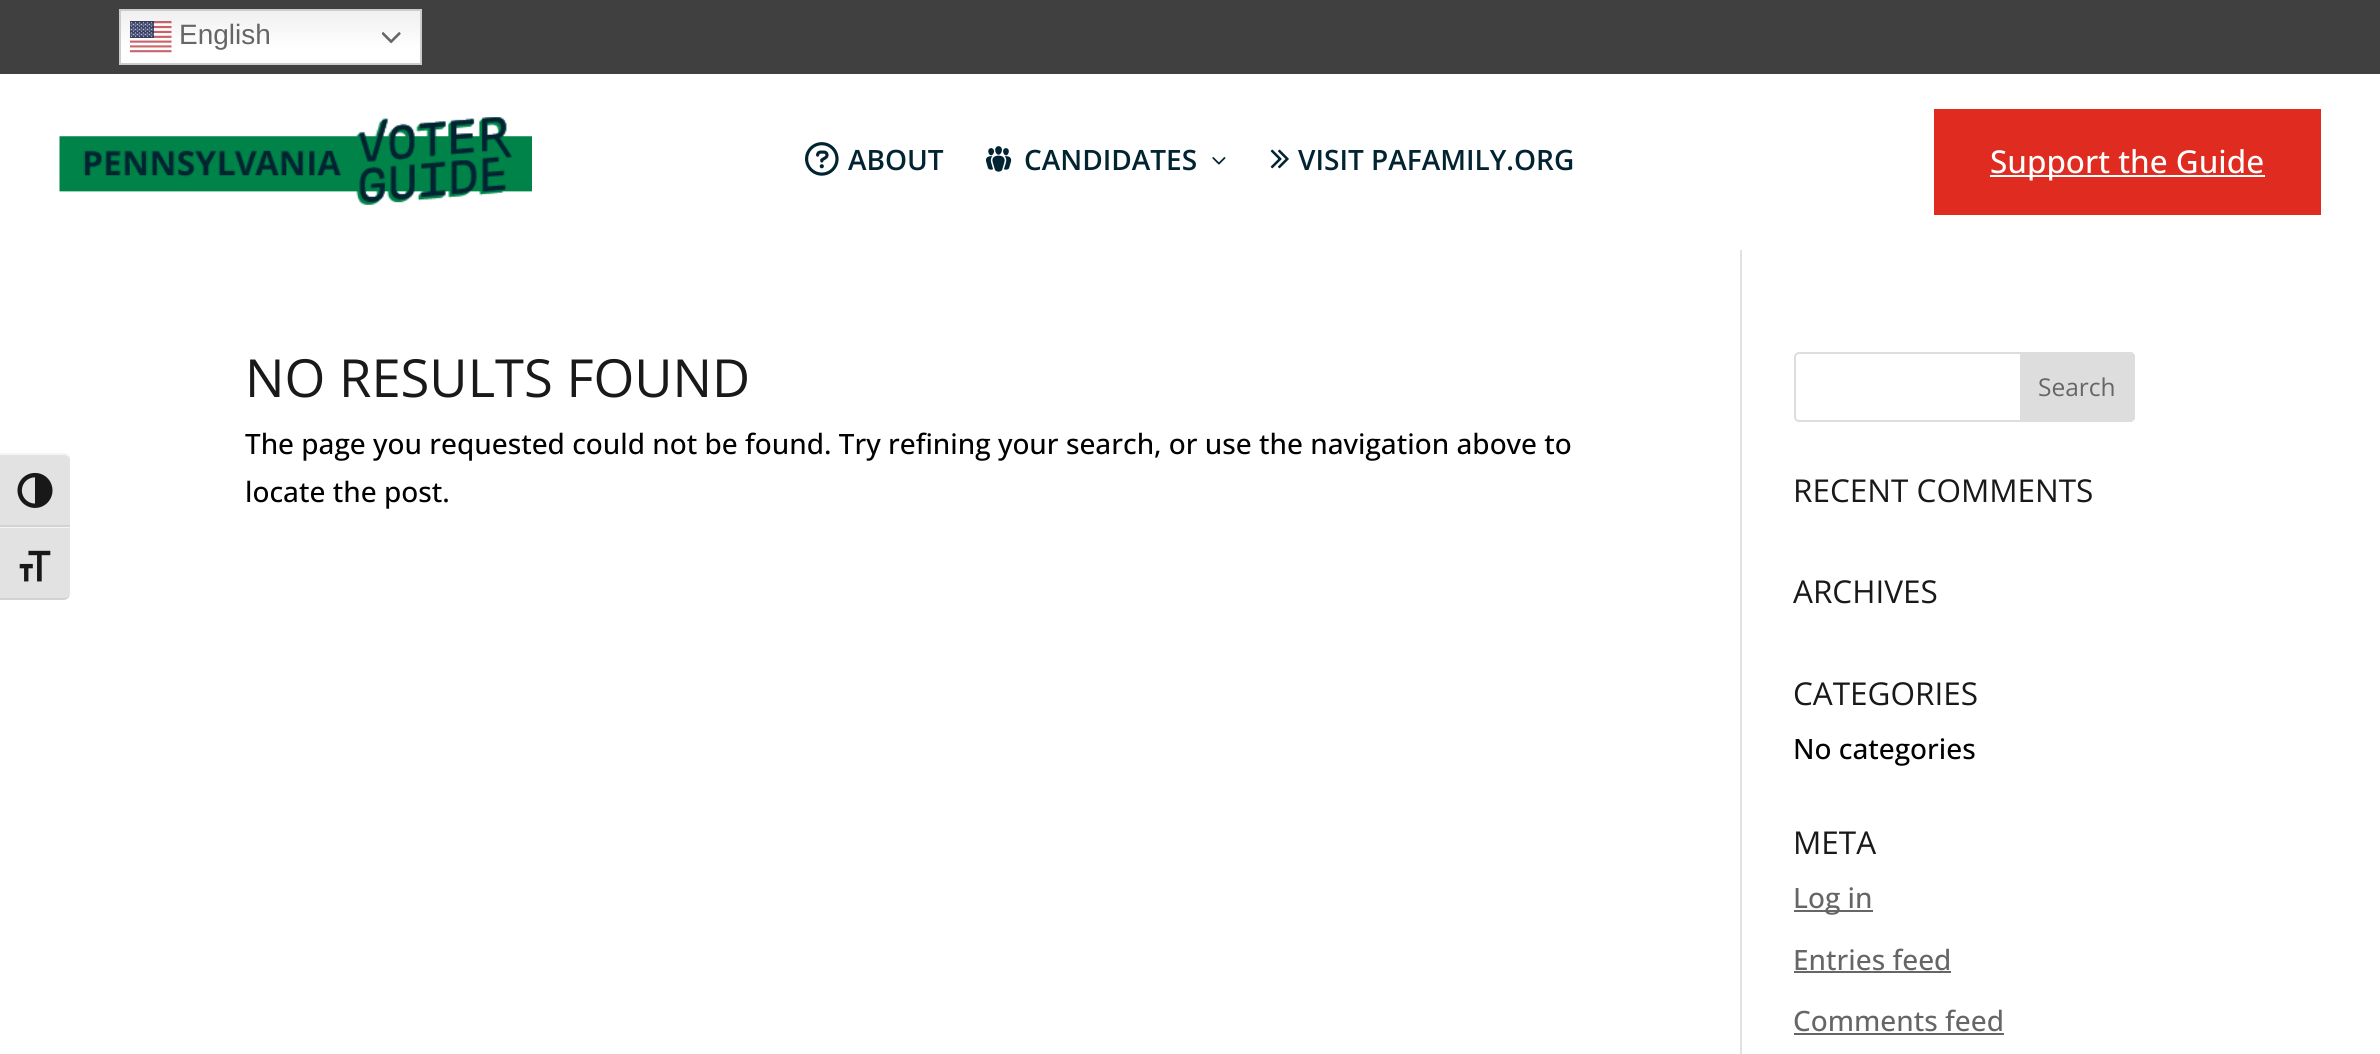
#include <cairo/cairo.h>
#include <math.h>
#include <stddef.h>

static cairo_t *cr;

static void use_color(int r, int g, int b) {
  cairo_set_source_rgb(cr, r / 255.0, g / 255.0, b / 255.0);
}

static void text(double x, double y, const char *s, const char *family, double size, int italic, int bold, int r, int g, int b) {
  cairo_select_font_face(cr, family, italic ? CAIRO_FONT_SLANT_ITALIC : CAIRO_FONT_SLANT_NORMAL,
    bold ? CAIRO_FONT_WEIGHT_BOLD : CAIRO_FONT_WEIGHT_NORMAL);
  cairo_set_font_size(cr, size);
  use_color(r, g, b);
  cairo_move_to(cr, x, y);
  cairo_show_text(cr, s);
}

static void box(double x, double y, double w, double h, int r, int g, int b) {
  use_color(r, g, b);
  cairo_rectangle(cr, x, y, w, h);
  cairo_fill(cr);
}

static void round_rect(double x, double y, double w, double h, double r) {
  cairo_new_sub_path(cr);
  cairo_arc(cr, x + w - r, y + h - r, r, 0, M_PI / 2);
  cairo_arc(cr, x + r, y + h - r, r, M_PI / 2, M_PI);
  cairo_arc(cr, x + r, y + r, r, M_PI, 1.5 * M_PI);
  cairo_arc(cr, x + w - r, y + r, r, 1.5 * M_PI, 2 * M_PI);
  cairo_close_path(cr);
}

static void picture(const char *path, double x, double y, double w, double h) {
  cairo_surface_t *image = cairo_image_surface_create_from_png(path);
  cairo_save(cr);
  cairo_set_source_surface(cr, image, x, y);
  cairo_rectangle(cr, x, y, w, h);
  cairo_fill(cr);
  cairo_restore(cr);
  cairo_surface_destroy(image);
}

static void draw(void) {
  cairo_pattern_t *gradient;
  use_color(255, 255, 255);
  cairo_paint(cr);
  use_color(226, 226, 226);
  cairo_new_path(cr);
  cairo_move_to(cr, 0, 453);
  cairo_line_to(cr, 63, 453);
  cairo_curve_to(cr, 67, 453, 70, 456, 70, 460);
  cairo_line_to(cr, 70, 527);
  cairo_line_to(cr, 0, 527);
  cairo_close_path(cr);
  cairo_fill(cr);
  use_color(245, 245, 245);
  cairo_new_path(cr);
  cairo_move_to(cr, 0, 455);
  cairo_line_to(cr, 63, 455);
  cairo_curve_to(cr, 67, 455, 70, 457, 70, 460);
  cairo_curve_to(cr, 70, 457, 68, 454, 65, 453);
  cairo_line_to(cr, 0, 453);
  cairo_close_path(cr);
  cairo_fill(cr);
  box(0, 525, 70, 2, 210, 210, 210);
  picture("img_01.png", 17, 472, 36, 36);
  use_color(226, 226, 226);
  cairo_new_path(cr);
  cairo_move_to(cr, 0, 527);
  cairo_line_to(cr, 70, 527);
  cairo_line_to(cr, 70, 593);
  cairo_curve_to(cr, 70, 597, 67, 600, 63, 600);
  cairo_line_to(cr, 0, 600);
  cairo_close_path(cr);
  cairo_fill(cr);
  box(0, 527, 70, 1, 245, 245, 245);
  use_color(210, 210, 210);
  cairo_new_path(cr);
  cairo_move_to(cr, 0, 598);
  cairo_line_to(cr, 0, 600);
  cairo_line_to(cr, 63, 600);
  cairo_curve_to(cr, 67, 600, 70, 597, 70, 593);
  cairo_curve_to(cr, 70, 596, 67, 598, 63, 598);
  cairo_close_path(cr);
  cairo_fill(cr);
  picture("img_02.png", 19, 550, 32, 32);
  box(0, 0, 2380, 74, 64, 64, 64);
  gradient = cairo_pattern_create_linear(270, 9, 270, 65);
  cairo_pattern_add_color_stop_rgba(gradient, 0, 0.937, 0.937, 0.937, 1);
  cairo_pattern_add_color_stop_rgba(gradient, 0.7, 1, 1, 1, 1);
  cairo_set_source(cr, gradient);
  cairo_pattern_destroy(gradient);
  cairo_rectangle(cr, 121, 11, 299, 52);
  cairo_fill(cr);
  cairo_rectangle(cr, 120, 10, 301, 54);
  use_color(204, 204, 204);
  cairo_stroke(cr);
  picture("img_03.png", 130, 21, 42, 32);
  picture("img_04.png", 382, 32, 19, 12);
  picture("img_05.png", 59, 117, 473, 88);
  picture("img_06.png", 805, 142, 34, 34);
  picture("img_07.png", 985, 146, 27, 26);
  picture("img_08.png", 1212, 157, 14, 8);
  picture("img_09.png", 1270, 149, 19, 20);
  box(1934, 109, 387, 106, 224, 43, 32);
  box(1990, 175, 275, 2, 255, 255, 255);
  box(1740, 250, 2, 804, 226, 226, 226);
  round_rect(1795, 353, 339, 68, 4);
  use_color(221, 221, 221);
  cairo_stroke(cr);
  cairo_new_path(cr);
  cairo_move_to(cr, 2021, 353);
  cairo_line_to(cr, 2130, 353);
  cairo_curve_to(cr, 2132, 353, 2134, 355, 2134, 357);
  cairo_line_to(cr, 2134, 417);
  cairo_curve_to(cr, 2134, 419, 2132, 421, 2130, 421);
  cairo_line_to(cr, 2021, 421);
  cairo_close_path(cr);
  cairo_fill_preserve(cr);
  cairo_stroke(cr);
  box(1794, 910, 79, 2, 102, 102, 102);
  box(1794, 971, 157, 2, 102, 102, 102);
  box(1794, 1033, 210, 2, 102, 102, 102);
  text(179, 44, "English", "Liberation Sans", 28, 0, 0, 102, 102, 102);
  text(848, 170, "ABOUT", "Open Sans SemiBold", 28, 0, 0, 2, 35, 49);
  text(1024, 170, "CANDIDATES", "Open Sans SemiBold", 28, 0, 0, 2, 35, 49);
  text(1298, 170, "VISIT PAFAMILY.ORG", "Open Sans SemiBold", 28, 0, 0, 2, 35, 49);
  text(1990, 173, "Support the Guide", "Open Sans Medium", 31.5, 0, 0, 255, 255, 255);
  text(245, 397, "NO RESULTS FOUND", "Open Sans", 52.5, 0, 0, 25, 25, 25);
  text(245, 454, "The page you requested could not be found. Try refining your search, or use the navigation above to", "Open Sans Medium", 28, 0, 0, 0, 0, 0);
  text(245, 502, "locate the post.", "Open Sans Medium", 28, 0, 0, 0, 0, 0);
  text(2038, 396, "Search", "Open Sans", 24.5, 0, 0, 102, 102, 102);
  text(1793, 502, "RECENT COMMENTS", "Open Sans", 31.5, 0, 0, 25, 25, 25);
  text(1793, 603, "ARCHIVES", "Open Sans", 31.5, 0, 0, 25, 25, 25);
  text(1793, 705, "CATEGORIES", "Open Sans", 31.5, 0, 0, 25, 25, 25);
  text(1793, 759, "No categories", "Open Sans Medium", 28, 0, 0, 0, 0, 0);
  text(1793, 854, "META", "Open Sans", 31.5, 0, 0, 25, 25, 25);
  text(1793, 908, "Log in", "Open Sans Medium", 28, 0, 0, 102, 102, 102);
  text(1793, 970, "Entries feed", "Open Sans Medium", 28, 0, 0, 102, 102, 102);
  text(1793, 1031, "Comments feed", "Open Sans Medium", 28, 0, 0, 102, 102, 102);
}

int main(void) {
  cairo_surface_t *surface = cairo_image_surface_create(CAIRO_FORMAT_RGB24, 2380, 1054);
  cr = cairo_create(surface);
  cairo_font_options_t *options = cairo_font_options_create();
  cairo_font_options_set_hint_metrics(options, CAIRO_HINT_METRICS_OFF);
  cairo_font_options_set_hint_style(options, CAIRO_HINT_STYLE_NONE);
  cairo_set_font_options(cr, options);
  cairo_set_miter_limit(cr, 4);
  draw();
  cairo_surface_write_to_png(surface, "out.png");
  cairo_font_options_destroy(options);
  cairo_destroy(cr);
  cairo_surface_destroy(surface);
  return 0;
}
